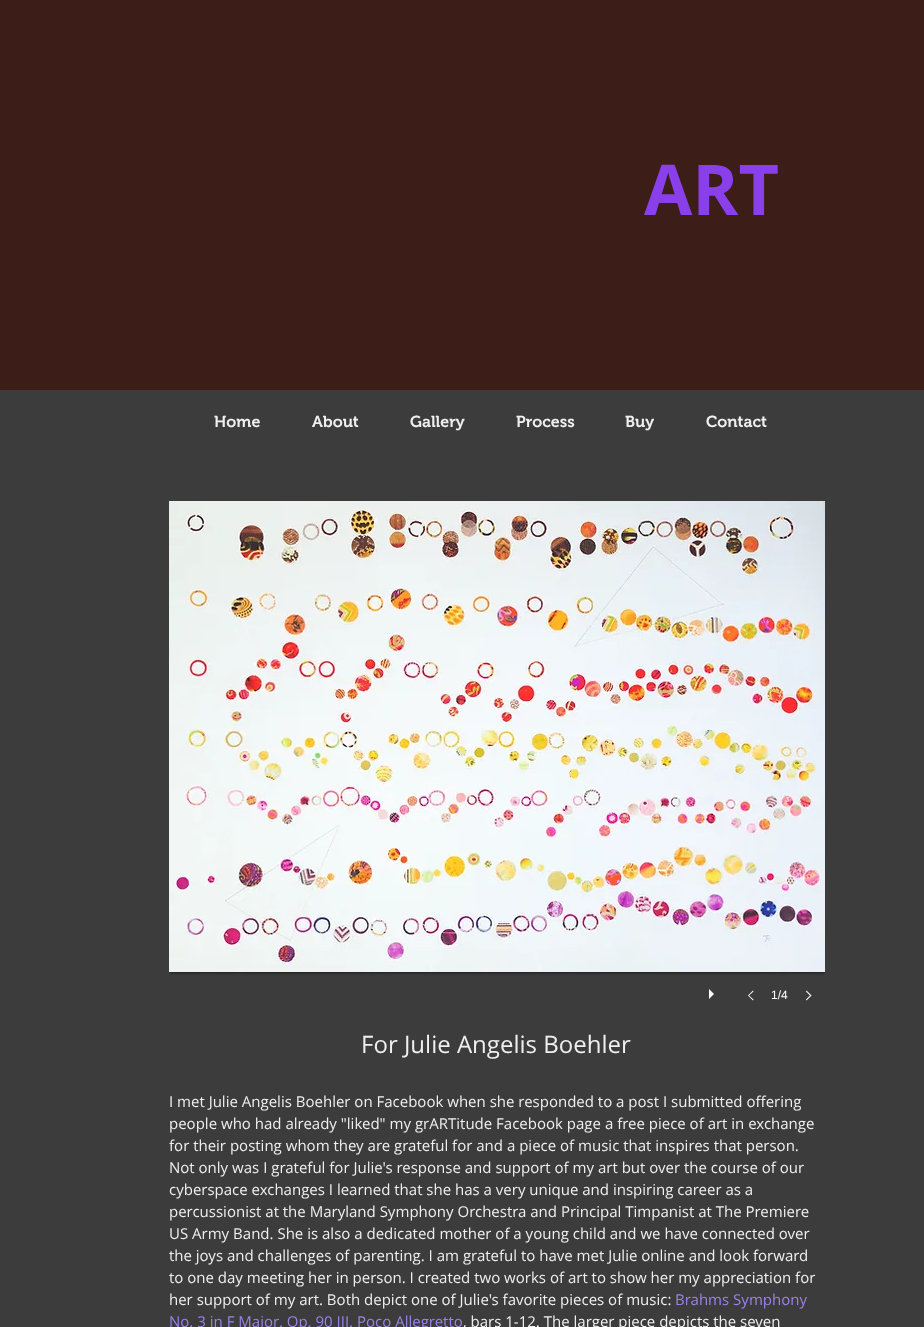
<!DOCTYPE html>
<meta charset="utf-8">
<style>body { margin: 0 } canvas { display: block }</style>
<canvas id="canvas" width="924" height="1327"></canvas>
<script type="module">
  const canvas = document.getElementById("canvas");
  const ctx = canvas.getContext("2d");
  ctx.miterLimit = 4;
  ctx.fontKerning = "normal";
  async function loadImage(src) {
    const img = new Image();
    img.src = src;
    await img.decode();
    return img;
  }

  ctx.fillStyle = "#3d3c3c";
  ctx.fillRect(0, 0, 924, 1327);
  ctx.fillStyle = "#3c1d17";
  ctx.fillRect(0, 0, 924, 390);
  ctx.font = "bold 70px Open Sans";
  ctx.fillStyle = "#8940ea";
  ctx.fillText("ART", 644, 215);
  ctx.font = "600 16px 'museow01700'";
  ctx.fillStyle = "#efefef";
  ctx.fillText("Home", 214, 427);
  ctx.fillText("About", 312, 427);
  ctx.fillText("Gallery", 410, 427);
  ctx.fillText("Process", 516, 427);
  ctx.fillText("Buy", 625, 427);
  ctx.fillText("Contact", 706, 427);
  ctx.save();
  ctx.beginPath();
  ctx.rect(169, 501, 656, 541);
  ctx.clip();
  ctx.fillStyle = "rgba(0, 0, 0, 0.5)";
  ctx.filter = "blur(1.5px)";
  ctx.beginPath();
  ctx.rect(169, 502, 656, 471);
  ctx.fill();
  ctx.filter = "none";
  ctx.restore();
  ctx.drawImage(await loadImage("img1.png"), 169, 501, 656, 471);
  ctx.fillStyle = "#ffffff";
  ctx.beginPath();
  ctx.moveTo(709, 999);
  ctx.lineTo(709, 989);
  ctx.lineTo(714, 994);
  ctx.closePath();
  ctx.fill();
  ctx.beginPath();
  ctx.moveTo(748, 995.5);
  ctx.lineTo(753, 990.5);
  ctx.lineTo(753.5, 991.5);
  ctx.lineTo(748.5, 996);
  ctx.closePath();
  ctx.fill();
  ctx.beginPath();
  ctx.moveTo(748, 995.5);
  ctx.lineTo(748.5, 995);
  ctx.lineTo(753.5, 999.5);
  ctx.lineTo(753, 1000.5);
  ctx.closePath();
  ctx.fill();
  ctx.font = "12px Liberation Sans";
  ctx.fillText("1/4", 771, 999);
  ctx.beginPath();
  ctx.moveTo(806, 991.5);
  ctx.lineTo(806.5, 990.5);
  ctx.lineTo(811.5, 995.5);
  ctx.lineTo(810.5, 996);
  ctx.closePath();
  ctx.fill();
  ctx.beginPath();
  ctx.moveTo(806, 999.5);
  ctx.lineTo(810.5, 995);
  ctx.lineTo(811.5, 995.5);
  ctx.lineTo(806.5, 1000.5);
  ctx.closePath();
  ctx.fill();
  ctx.font = "24px Open Sans";
  ctx.fillStyle = "#efefef";
  ctx.fillText("For Julie Angelis Boehler", 361, 1053);
  ctx.font = "15px Open Sans";
  ctx.fillText("I met Julie Angelis Boehler on Facebook when she responded to a post I submitted offering", 169, 1107);
  ctx.fillText("people who had already \"liked\" my grARTitude Facebook page a free piece of art in exchange", 169, 1129);
  ctx.fillText("for their posting whom they are grateful for and a piece of music that inspires that person.", 169, 1151);
  ctx.fillText("Not only was I grateful for Julie's response and support of my art but over the course of our", 169, 1173);
  ctx.fillText("cyberspace exchanges I learned that she has a very unique and inspiring career as a", 169, 1195);
  ctx.fillText("percussionist at the Maryland Symphony Orchestra and Principal Timpanist at The Premiere", 169, 1217);
  ctx.fillText("US Army Band. She is also a dedicated mother of a young child and we have connected over", 169, 1239);
  ctx.fillText("the joys and challenges of parenting. I am grateful to have met Julie online and look forward", 169, 1261);
  ctx.fillText("to one day meeting her in person. I created two works of art to show her my appreciation for", 169, 1283);
  ctx.fillText("her support of my art. Both depict one of Julie's favorite pieces of music:", 169, 1305);
  ctx.fillStyle = "#9b83e6";
  ctx.fillText("Brahms Symphony", 675, 1305);
  ctx.fillText("No. 3 in F Major, Op. 90 III. Poco Allegretto", 169, 1327);
  ctx.fillStyle = "#efefef";
  ctx.fillText(", bars 1-12. The larger piece depicts the seven", 463, 1327);
</script>
